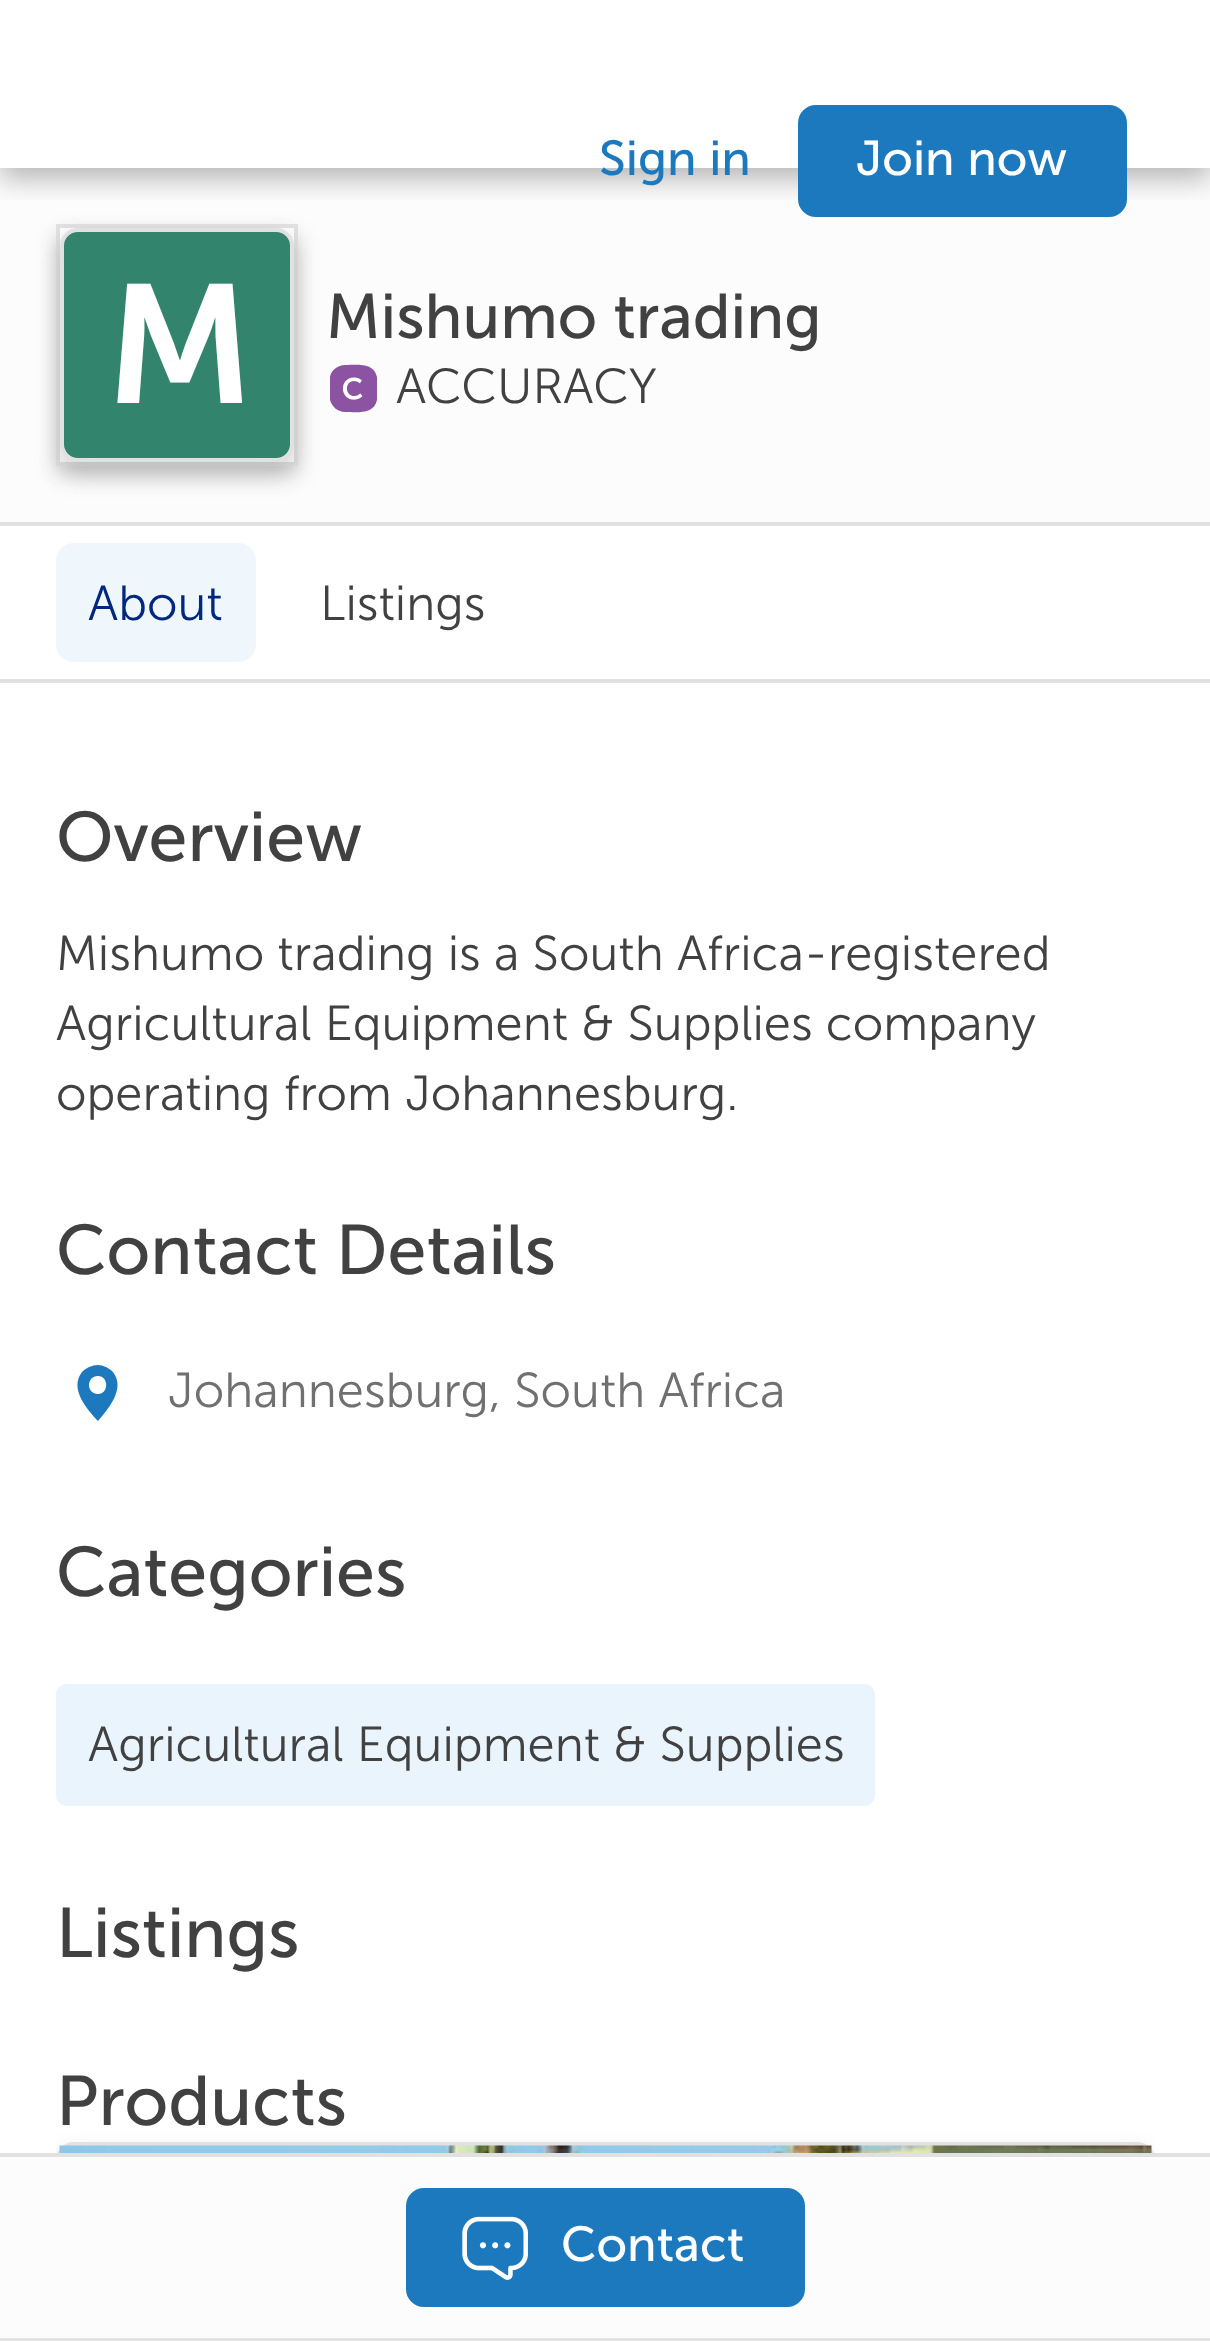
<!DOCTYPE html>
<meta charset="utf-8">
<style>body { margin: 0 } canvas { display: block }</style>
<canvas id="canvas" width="1210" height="2341"></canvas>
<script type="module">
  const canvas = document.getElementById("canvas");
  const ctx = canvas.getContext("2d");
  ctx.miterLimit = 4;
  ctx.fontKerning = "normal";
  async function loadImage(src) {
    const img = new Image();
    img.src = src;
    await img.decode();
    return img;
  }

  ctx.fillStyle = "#ffffff";
  ctx.fillRect(0, 0, 1210, 2341);
  ctx.fillStyle = "#fcfcfc";
  ctx.fillRect(0, 168, 1210, 354);
  ctx.save();
  ctx.beginPath();
  ctx.rect(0, 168, 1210, 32);
  ctx.clip();
  ctx.fillStyle = "rgba(0, 0, 0, 0.28)";
  ctx.filter = "blur(14px)";
  ctx.beginPath();
  ctx.rect(0, 11, 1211, 168);
  ctx.fill();
  ctx.filter = "none";
  ctx.restore();
  ctx.font = "49px Museo Sans";
  ctx.fillStyle = "#1d79be";
  ctx.fillText("Sign in", 599, 175);
  ctx.beginPath();
  ctx.roundRect(800, 107, 325, 108, 16);
  ctx.fill();
  ctx.strokeStyle = "#1d79be";
  ctx.lineWidth = 4;
  ctx.stroke();
  ctx.fillStyle = "#ffffff";
  ctx.fillText("Join now", 856, 175);
  ctx.save();
  ctx.beginPath();
  ctx.moveTo(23, 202);
  ctx.lineTo(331, 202);
  ctx.lineTo(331, 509);
  ctx.lineTo(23, 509);
  ctx.closePath();
  ctx.moveTo(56, 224);
  ctx.lineTo(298, 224);
  ctx.lineTo(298, 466);
  ctx.lineTo(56, 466);
  ctx.closePath();
  ctx.clip("evenodd");
  ctx.fillStyle = "rgba(0, 0, 0, 0.16)";
  ctx.filter = "blur(10.5px)";
  ctx.beginPath();
  ctx.rect(56, 235, 242, 241);
  ctx.fill();
  ctx.filter = "none";
  ctx.restore();
  ctx.strokeStyle = "#e1e1e1";
  ctx.strokeRect(58, 226, 238, 238);
  ctx.fillStyle = "rgba(0, 0, 0, 0.16)";
  ctx.filter = "blur(10.5px)";
  ctx.beginPath();
  ctx.roundRect(60, 238, 234, 235, 18);
  ctx.fill();
  ctx.filter = "none";
  ctx.fillStyle = "#32846c";
  ctx.beginPath();
  ctx.roundRect(62, 230, 230, 230, 16);
  ctx.fill();
  ctx.stroke();
  ctx.font = "600 168px Museo Sans";
  ctx.fillStyle = "#ffffff";
  ctx.fillText("M", 106, 403);
  ctx.font = "63px Museo Sans";
  ctx.fillStyle = "#414141";
  ctx.fillText("Mishumo trading", 326, 338);
  ctx.fillStyle = "#8b53a2";
  ctx.beginPath();
  ctx.moveTo(345, 365);
  ctx.bezierCurveTo(356, 365, 374, 362, 377, 377);
  ctx.lineTo(377, 400);
  ctx.bezierCurveTo(374, 415, 356, 412, 345, 412);
  ctx.bezierCurveTo(338, 412, 332, 407, 330, 400);
  ctx.lineTo(330, 377);
  ctx.bezierCurveTo(331, 370, 338, 365, 345, 365);
  ctx.closePath();
  ctx.fill();
  ctx.drawImage(await loadImage("img1.png"), 342, 377, 21, 23);
  ctx.font = "300 49px Museo Sans";
  ctx.fillStyle = "#414141";
  ctx.fillText("ACCURACY", 396, 403);
  ctx.fillStyle = "#e1e1e1";
  ctx.fillRect(0, 522, 1210, 4);
  ctx.fillRect(0, 679, 1210, 4);
  ctx.fillStyle = "#f0f7fc";
  ctx.beginPath();
  ctx.roundRect(56, 543, 200, 119, 18);
  ctx.fill();
  ctx.fillStyle = "#00297e";
  ctx.fillText("About", 88, 620);
  ctx.fillStyle = "#414141";
  ctx.fillText("Listings", 320, 620);
  ctx.save();
  ctx.beginPath();
  ctx.rect(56, 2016, 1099, 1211);
  ctx.clip();
  ctx.fillStyle = "rgba(0, 0, 0, 0.16)";
  ctx.filter = "blur(10.5px)";
  ctx.beginPath();
  ctx.roundRect(56, 2153, 1099, 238, 18);
  ctx.fill();
  ctx.filter = "none";
  ctx.restore();
  ctx.beginPath();
  ctx.roundRect(58, 2144, 1095, 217, 16);
  ctx.stroke();
  ctx.fillStyle = "#fcfcfc";
  ctx.fillRect(0, 2157, 1210, 181);
  ctx.fillStyle = "#e1e1e1";
  ctx.fillRect(0, 2153, 1210, 4);
  ctx.fillRect(0, 2338, 1210, 3);
  ctx.fillStyle = "#1d79be";
  ctx.beginPath();
  ctx.roundRect(408, 2190, 395, 115, 16);
  ctx.fill();
  ctx.strokeStyle = "#1d79be";
  ctx.stroke();
  ctx.drawImage(await loadImage("img2.png"), 462, 2216, 66, 64);
  ctx.font = "49px Museo Sans";
  ctx.fillStyle = "#ffffff";
  ctx.fillText("Contact", 561, 2261);
  ctx.font = "70px Museo Sans";
  ctx.fillStyle = "#414141";
  ctx.fillText("Overview", 56, 861);
  ctx.font = "300 49px Museo Sans";
  ctx.fillText("Mishumo trading is a South Africa-registered", 56, 970);
  ctx.fillText("Agricultural Equipment & Supplies company", 56, 1040);
  ctx.fillText("operating from Johannesburg.", 56, 1110);
  ctx.font = "70px Museo Sans";
  ctx.fillText("Contact Details", 56, 1274);
  ctx.fillStyle = "#1d79be";
  ctx.beginPath();
  ctx.moveTo(98, 1394);
  ctx.bezierCurveTo(86, 1394, 86, 1376, 98, 1376);
  ctx.bezierCurveTo(109, 1376, 109, 1394, 98, 1394);
  ctx.closePath();
  ctx.moveTo(98, 1365);
  ctx.bezierCurveTo(92, 1365, 86, 1368, 82, 1372);
  ctx.bezierCurveTo(69, 1389, 87, 1409, 98, 1421);
  ctx.bezierCurveTo(108, 1409, 126, 1389, 113, 1372);
  ctx.bezierCurveTo(109, 1368, 103, 1365, 98, 1365);
  ctx.closePath();
  ctx.fill();
  ctx.font = "300 49px Museo Sans";
  ctx.fillStyle = "#707070";
  ctx.fillText("Johannesburg, South Africa", 168, 1407);
  ctx.font = "70px Museo Sans";
  ctx.fillStyle = "#414141";
  ctx.fillText("Categories", 56, 1596);
  ctx.fillStyle = "#e9f4fc";
  ctx.beginPath();
  ctx.roundRect(58, 1686, 815, 118, 9);
  ctx.fill();
  ctx.strokeStyle = "#e9f4fc";
  ctx.stroke();
  ctx.font = "300 49px Museo Sans";
  ctx.fillStyle = "#414141";
  ctx.fillText("Agricultural Equipment & Supplies", 88, 1761);
  ctx.font = "70px Museo Sans";
  ctx.fillText("Listings", 56, 1957);
  ctx.fillText("Products", 56, 2125);
  ctx.drawImage(await loadImage("img3.png"), 59, 2145, 1093, 8);
</script>
